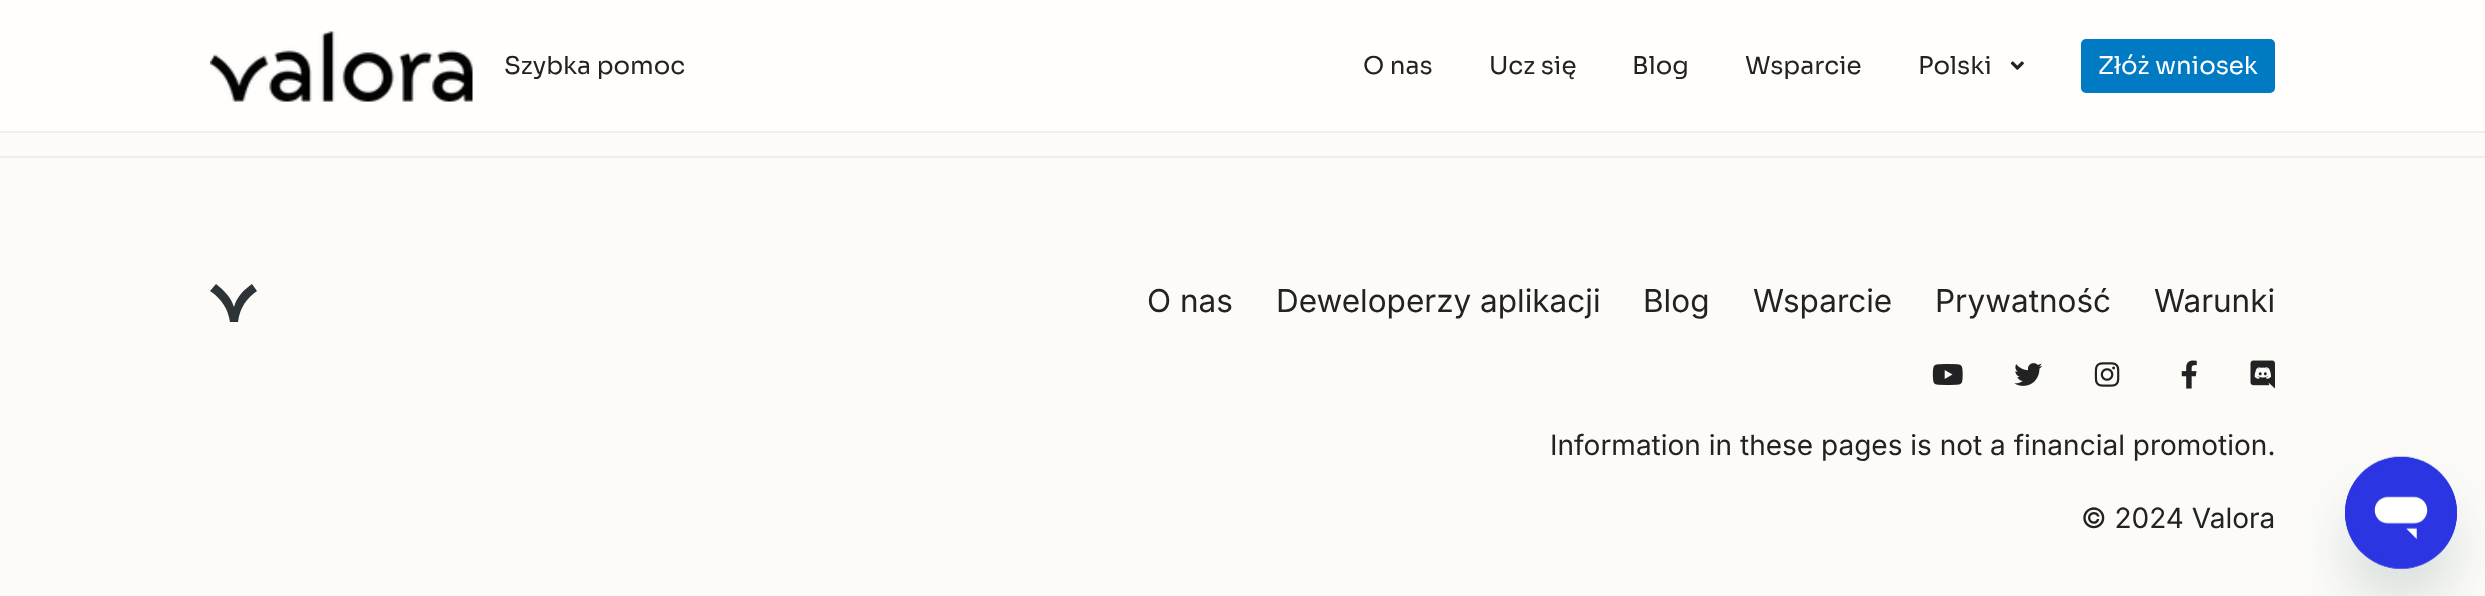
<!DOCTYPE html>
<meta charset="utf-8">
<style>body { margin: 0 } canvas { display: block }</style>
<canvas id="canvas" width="2485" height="596"></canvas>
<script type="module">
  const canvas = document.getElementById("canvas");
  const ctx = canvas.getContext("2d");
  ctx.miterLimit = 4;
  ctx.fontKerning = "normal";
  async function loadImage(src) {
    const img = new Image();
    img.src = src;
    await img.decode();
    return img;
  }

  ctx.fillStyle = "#fcfbf8";
  ctx.fillRect(0, 0, 2485, 596);
  ctx.fillStyle = "#fffefc";
  ctx.fillRect(0, 0, 2485, 131);
  ctx.fillStyle = "#eeeeee";
  ctx.fillRect(0, 131, 2485, 2);
  ctx.drawImage(await loadImage("img1.png"), 210, 31, 263, 71);
  ctx.font = "24.5px Sora";
  ctx.fillStyle = "#222222";
  ctx.fillText("Szybka pomoc", 504, 74);
  ctx.fillText("O nas", 1363, 74);
  ctx.fillText("Ucz się", 1489, 74);
  ctx.fillText("Blog", 1632, 74);
  ctx.fillText("Wsparcie", 1745, 74);
  ctx.fillText("Polski", 1918, 74);
  ctx.drawImage(await loadImage("img2.png"), 2010, 61, 14, 9);
  ctx.fillStyle = "#007ac2";
  ctx.beginPath();
  ctx.roundRect(2081, 39, 194, 54, 5);
  ctx.fill();
  ctx.fillStyle = "#ffffff";
  ctx.fillText("Złóż wniosek", 2098, 74);
  ctx.fillStyle = "#eeeeee";
  ctx.fillRect(0, 156, 2485, 2);
  ctx.fillStyle = "#2e3338";
  ctx.beginPath();
  ctx.moveTo(238, 322);
  ctx.bezierCurveTo(240, 307, 247, 298, 257, 291);
  ctx.lineTo(252, 284);
  ctx.bezierCurveTo(245, 289, 237, 296, 234, 307);
  ctx.bezierCurveTo(231, 298, 225, 291, 216, 284);
  ctx.lineTo(210, 291);
  ctx.bezierCurveTo(222, 299, 228, 309, 230, 322);
  ctx.closePath();
  ctx.fill();
  ctx.font = "31.5px Inter";
  ctx.fillStyle = "#222222";
  ctx.fillText("O nas", 1147, 312);
  ctx.fillText("Deweloperzy aplikacji", 1276, 312);
  ctx.fillText("Blog", 1643, 312);
  ctx.fillText("Wsparcie", 1753, 312);
  ctx.fillText("Prywatność", 1935, 312);
  ctx.fillText("Warunki", 2154, 312);
  ctx.drawImage(await loadImage("img3.png"), 1932, 364, 31, 21);
  ctx.drawImage(await loadImage("img4.png"), 2014, 363, 29, 23);
  ctx.drawImage(await loadImage("img5.png"), 2094, 362, 26, 25);
  ctx.drawImage(await loadImage("img6.png"), 2181, 360, 16, 29);
  ctx.drawImage(await loadImage("img7.png"), 2250, 360, 25, 29);
  ctx.font = "28px Inter";
  ctx.fillText("Information in these pages is not a financial promotion.", 1550, 455);
  ctx.fillText("© 2024 Valora", 2081, 528);
  ctx.fillStyle = "rgba(23, 73, 77, 0.15)";
  ctx.filter = "blur(26px)";
  ctx.beginPath();
  ctx.roundRect(2345, 492, 112, 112, 56);
  ctx.fill();
  ctx.filter = "none";
  ctx.drawImage(await loadImage("img8.png"), 2345, 456, 112, 113);
</script>
